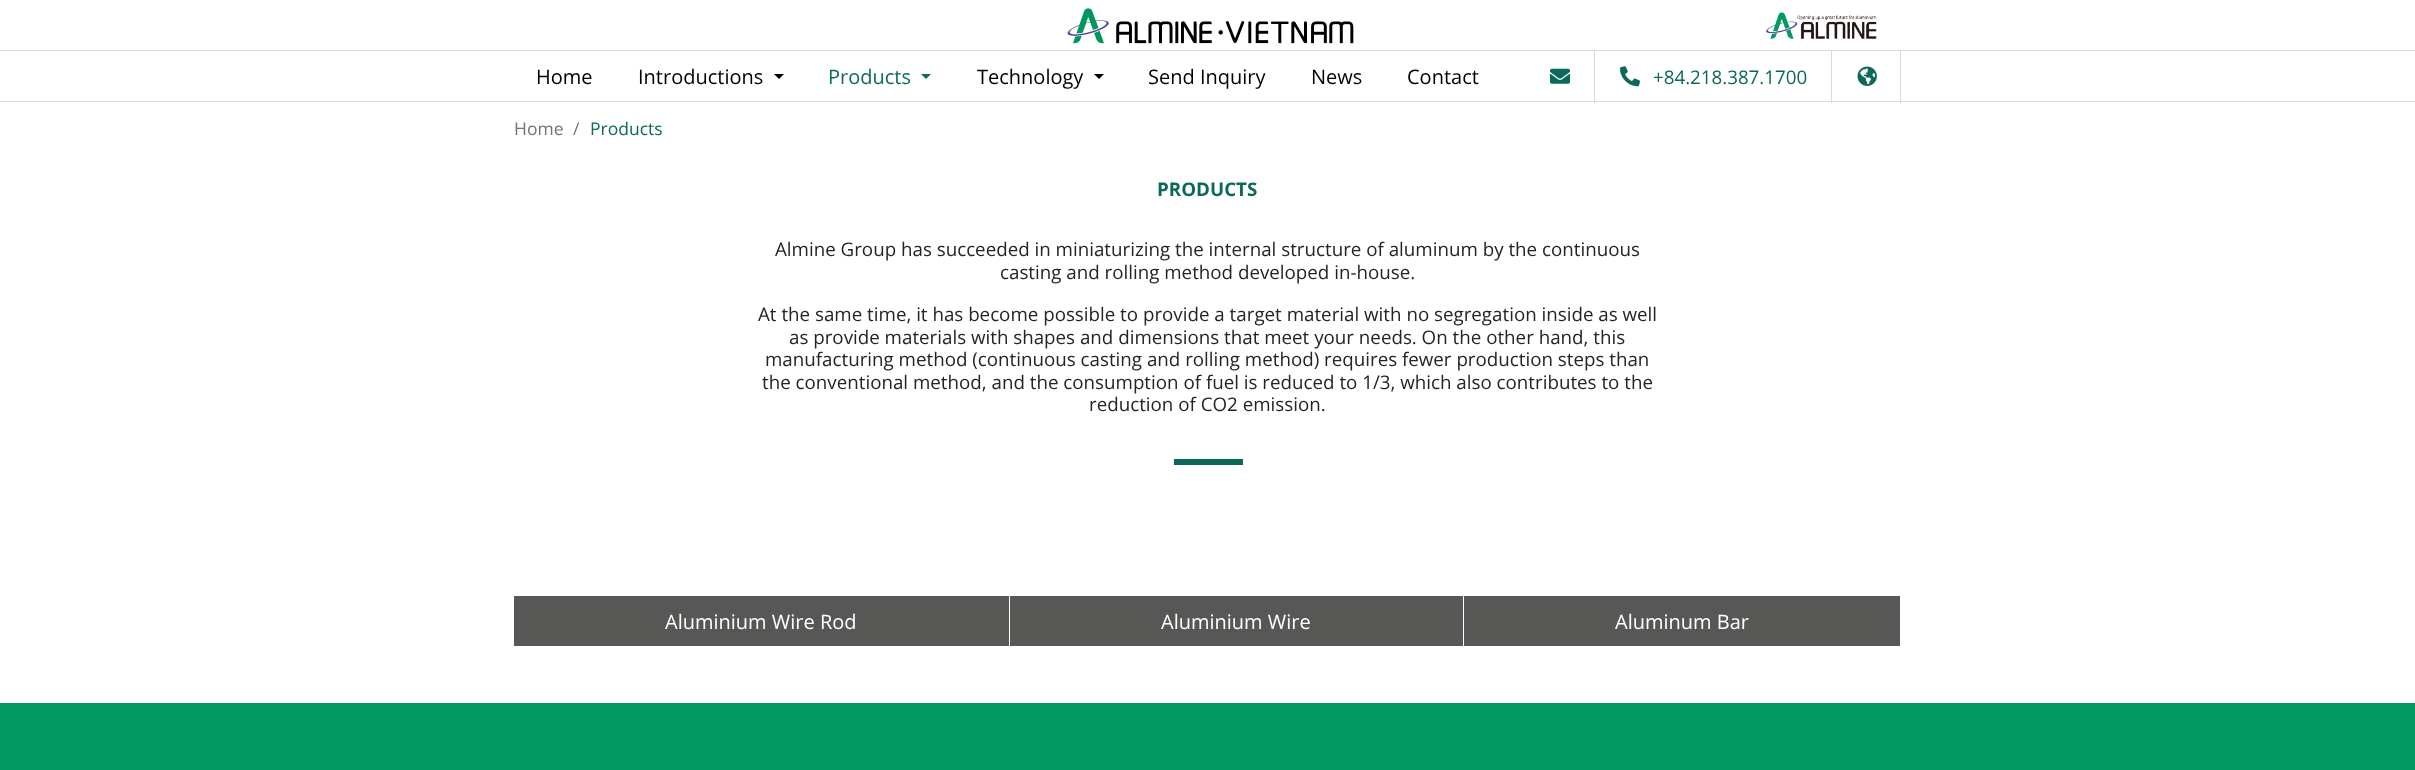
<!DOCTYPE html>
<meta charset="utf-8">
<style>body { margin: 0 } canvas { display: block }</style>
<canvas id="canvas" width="2415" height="770"></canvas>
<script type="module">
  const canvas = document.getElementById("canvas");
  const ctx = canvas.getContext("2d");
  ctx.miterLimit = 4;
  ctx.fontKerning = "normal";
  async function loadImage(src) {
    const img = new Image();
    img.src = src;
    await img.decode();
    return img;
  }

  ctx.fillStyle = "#ffffff";
  ctx.fillRect(0, 0, 2415, 770);
  ctx.drawImage(await loadImage("img1.png"), 1067, 8, 287, 36);
  ctx.fillStyle = "#d9d9d9";
  ctx.fillRect(0, 50, 2415, 1);
  ctx.fillRect(0, 101, 2415, 1);
  ctx.font = "20px Open Sans";
  ctx.fillStyle = "#000000";
  ctx.fillText("Home", 536, 84);
  ctx.fillText("Introductions", 638, 84);
  ctx.beginPath();
  ctx.moveTo(774, 74);
  ctx.lineTo(784, 74);
  ctx.lineTo(779, 79);
  ctx.closePath();
  ctx.fill();
  ctx.fillStyle = "#0c695a";
  ctx.fillText("Products", 828, 84);
  ctx.beginPath();
  ctx.moveTo(921, 74);
  ctx.lineTo(931, 74);
  ctx.lineTo(926, 79);
  ctx.closePath();
  ctx.fill();
  ctx.fillStyle = "#000000";
  ctx.fillText("Technology", 977, 84);
  ctx.beginPath();
  ctx.moveTo(1094, 74);
  ctx.lineTo(1104, 74);
  ctx.lineTo(1099, 79);
  ctx.closePath();
  ctx.fill();
  ctx.fillText("Send Inquiry", 1148, 84);
  ctx.fillText("News", 1311, 84);
  ctx.fillText("Contact", 1407, 84);
  ctx.drawImage(await loadImage("img2.png"), 1766, 12, 111, 27);
  ctx.drawImage(await loadImage("img3.png"), 1550, 68, 20, 16);
  ctx.fillStyle = "#d9d9d9";
  ctx.fillRect(1594, 50, 1, 53);
  ctx.drawImage(await loadImage("img4.png"), 1620, 66, 20, 21);
  ctx.font = "18.75px Open Sans";
  ctx.fillStyle = "#0c695a";
  ctx.fillText("+84.218.387.1700", 1653, 84);
  ctx.fillStyle = "#d9d9d9";
  ctx.fillRect(1831, 50, 1, 53);
  ctx.drawImage(await loadImage("img5.png"), 1857, 66, 20, 20);
  ctx.fillRect(1900, 50, 1, 53);
  ctx.font = "17.5px Open Sans";
  ctx.fillStyle = "#737373";
  ctx.fillText("Home", 514, 135);
  ctx.fillStyle = "#6c757d";
  ctx.fillText("/", 573, 135);
  ctx.fillStyle = "#0c695a";
  ctx.fillText("Products", 590, 135);
  ctx.font = "bold 18.75px Open Sans";
  ctx.fillText("PRODUCTS", 1157, 196);
  ctx.font = "18.75px Open Sans";
  ctx.fillStyle = "#212529";
  ctx.fillText("Almine Group has succeeded in miniaturizing the internal structure of aluminum by the continuous", 775, 256);
  ctx.fillText("casting and rolling method developed in-house.", 1000, 279);
  ctx.fillText("At the same time, it has become possible to provide a target material with no segregation inside as well", 758, 321);
  ctx.fillText("as provide materials with shapes and dimensions that meet your needs. On the other hand, this", 789, 344);
  ctx.fillText("manufacturing method (continuous casting and rolling method) requires fewer production steps than", 765, 366);
  ctx.fillText("the conventional method, and the consumption of fuel is reduced to 1/3, which also contributes to the", 762, 389);
  ctx.fillText("reduction of CO2 emission.", 1089, 411);
  ctx.fillStyle = "#0c695a";
  ctx.fillRect(1174, 459, 69, 6);
  ctx.fillStyle = "#575756";
  ctx.fillRect(514, 596, 495, 50);
  ctx.font = "20px Open Sans";
  ctx.fillStyle = "#ffffff";
  ctx.fillText("Aluminium Wire Rod", 665, 629);
  ctx.fillStyle = "#575756";
  ctx.fillRect(1010, 596, 453, 50);
  ctx.fillStyle = "#ffffff";
  ctx.fillText("Aluminium Wire", 1161, 629);
  ctx.fillStyle = "#575756";
  ctx.fillRect(1464, 596, 436, 50);
  ctx.fillStyle = "#ffffff";
  ctx.fillText("Aluminum Bar", 1615, 629);
  ctx.fillStyle = "#009a62";
  ctx.fillRect(0, 703, 2415, 67);
</script>
